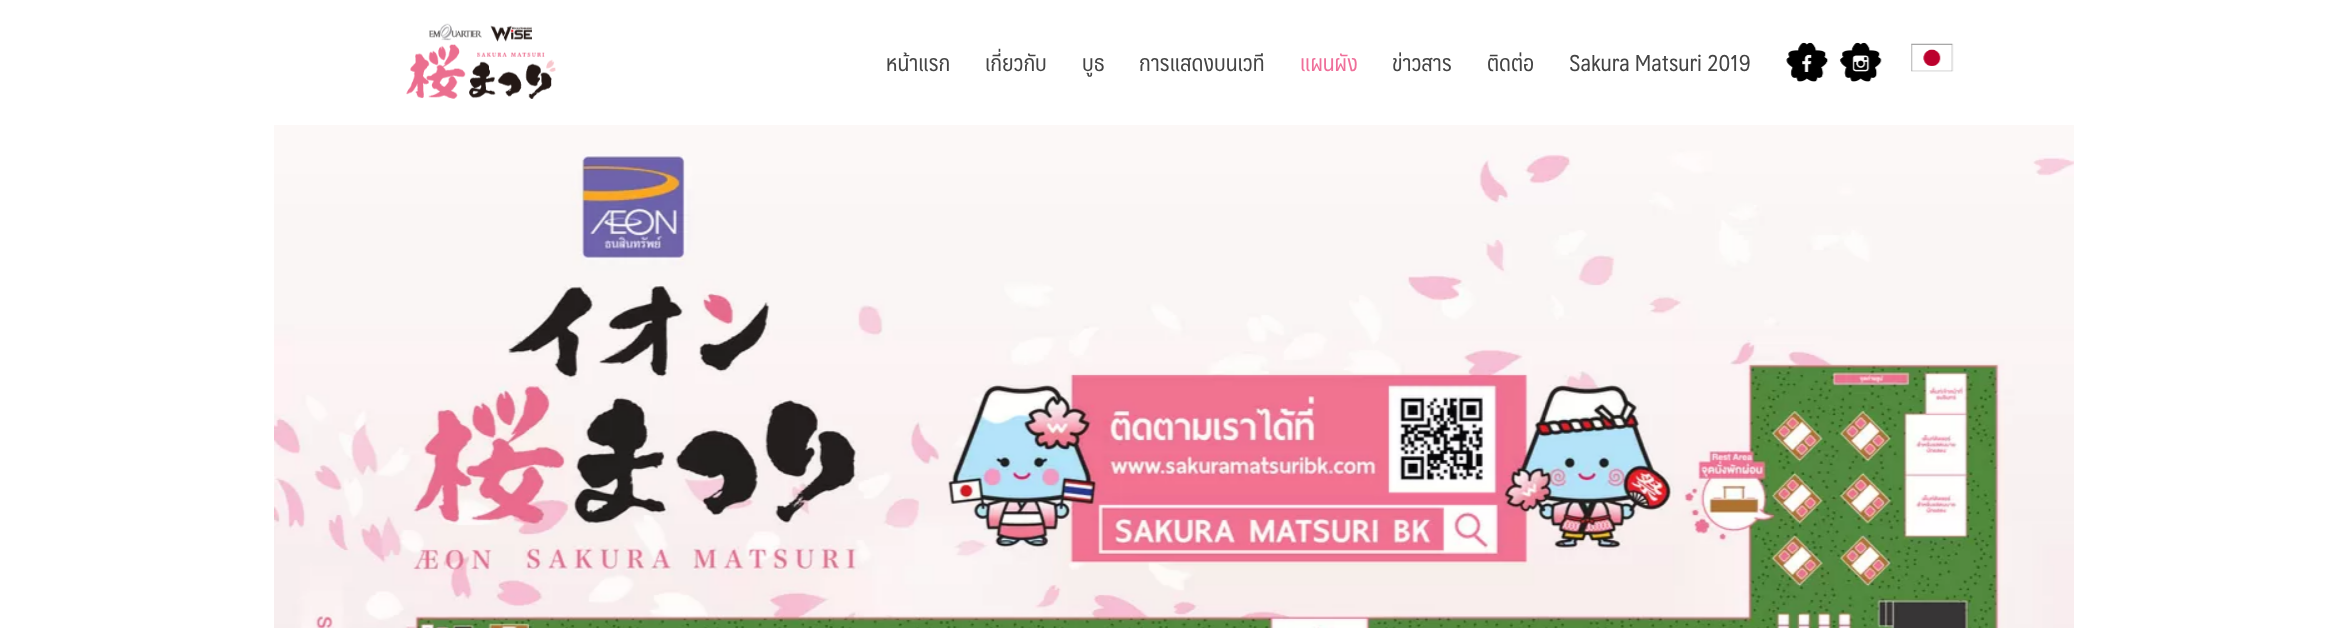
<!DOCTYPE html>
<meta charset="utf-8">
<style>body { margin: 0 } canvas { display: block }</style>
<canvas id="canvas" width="2347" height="628"></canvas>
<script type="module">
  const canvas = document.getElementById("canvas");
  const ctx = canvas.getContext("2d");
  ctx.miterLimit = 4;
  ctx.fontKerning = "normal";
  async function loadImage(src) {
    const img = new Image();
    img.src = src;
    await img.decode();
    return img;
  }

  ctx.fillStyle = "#ffffff";
  ctx.fillRect(0, 0, 2347, 628);
  ctx.drawImage(await loadImage("img1.png"), 406, 23, 150, 76);
  ctx.font = "22.5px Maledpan";
  ctx.fillStyle = "#444444";
  ctx.fillText("หน้าแรก", 886, 71);
  ctx.fillText("เกี่ยวกับ", 985, 71);
  ctx.fillText("บูธ", 1082, 71);
  ctx.fillText("การแสดงบนเวที", 1139, 71);
  ctx.fillStyle = "#ef6f9a";
  ctx.fillText("แผนผัง", 1300, 71);
  ctx.fillStyle = "#444444";
  ctx.fillText("ข่าวสาร", 1392, 71);
  ctx.fillText("ติดต่อ", 1487, 71);
  ctx.fillText("Sakura Matsuri 2019", 1569, 71);
  ctx.drawImage(await loadImage("img2.png"), 1786, 42, 43, 40);
  ctx.drawImage(await loadImage("img3.png"), 1839, 42, 43, 40);
  ctx.drawImage(await loadImage("img4.png"), 1911, 43, 43, 29);
  ctx.drawImage(await loadImage("img5.png"), 274, 125, 1800, 503);
</script>
